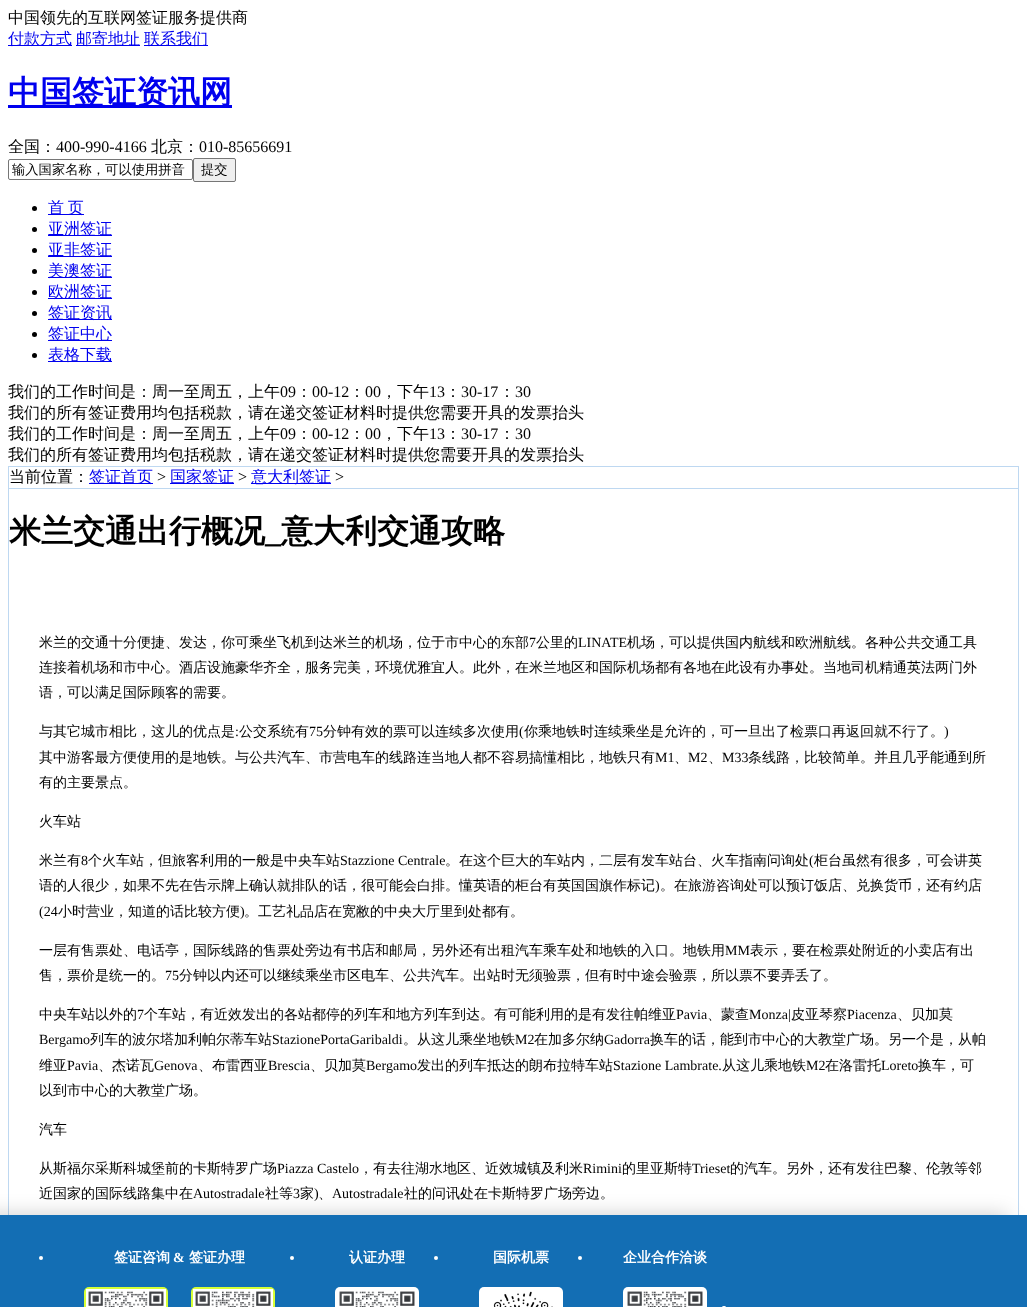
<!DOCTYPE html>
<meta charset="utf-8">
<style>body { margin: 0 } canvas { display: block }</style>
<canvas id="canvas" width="1027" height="1307"></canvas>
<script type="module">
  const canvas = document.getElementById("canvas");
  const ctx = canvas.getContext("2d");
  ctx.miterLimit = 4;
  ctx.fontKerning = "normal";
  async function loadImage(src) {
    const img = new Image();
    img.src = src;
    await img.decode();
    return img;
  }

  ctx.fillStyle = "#ffffff";
  ctx.fillRect(0, 0, 1027, 1307);
  ctx.font = "500 16px WenQuanYi Zen Hei";
  ctx.fillStyle = "#000000";
  ctx.fillText("中国领先的互联网签证服务提供商", 8, 23);
  ctx.fillStyle = "#0000ee";
  ctx.fillRect(8, 45, 64, 1);
  ctx.fillText("付款方式", 8, 44);
  ctx.fillRect(76, 45, 64, 1);
  ctx.fillText("邮寄地址", 76, 44);
  ctx.fillRect(144, 45, 64, 1);
  ctx.fillText("联系我们", 144, 44);
  ctx.fillRect(8, 105, 224, 3);
  ctx.font = "bold 32px WenQuanYi Zen Hei";
  ctx.fillText("中国签证资讯网", 8, 103);
  ctx.font = "500 16px WenQuanYi Zen Hei";
  ctx.fillStyle = "#000000";
  ctx.fillText("全国：", 8, 152);
  ctx.font = "16px Liberation Serif";
  ctx.fillText("400-990-4166", 56, 152);
  ctx.font = "500 16px WenQuanYi Zen Hei";
  ctx.fillText("北京：", 151, 152);
  ctx.font = "16px Liberation Serif";
  ctx.fillText("010-85656691", 199, 152);
  ctx.beginPath();
  ctx.roundRect(8.5, 159.5, 184, 20, 1.5);
  ctx.strokeStyle = "#767676";
  ctx.stroke();
  ctx.font = "500 13.3px WenQuanYi Zen Hei";
  ctx.fillText("输入国家名称，可以使用拼音", 12, 174);
  ctx.fillStyle = "#efefef";
  ctx.beginPath();
  ctx.roundRect(193.5, 158.5, 42, 23, 1.5);
  ctx.fill();
  ctx.stroke();
  ctx.fillStyle = "#000000";
  ctx.fillText("提交", 201, 174);
  ctx.beginPath();
  ctx.arc(34.5, 208.5, 2.5, 0, Math.PI * 2);
  ctx.fill();
  ctx.fillStyle = "#0000ee";
  ctx.fillRect(48, 214, 36, 1);
  ctx.wordSpacing = "-1px";
  ctx.font = "500 16px WenQuanYi Zen Hei";
  ctx.fillText("首 页", 48, 213);
  ctx.fillStyle = "#000000";
  ctx.beginPath();
  ctx.arc(34.5, 229.5, 2.5, 0, Math.PI * 2);
  ctx.fill();
  ctx.fillStyle = "#0000ee";
  ctx.fillRect(48, 235, 64, 1);
  ctx.wordSpacing = "0px";
  ctx.fillText("亚洲签证", 48, 234);
  ctx.fillStyle = "#000000";
  ctx.beginPath();
  ctx.arc(34.5, 250.5, 2.5, 0, Math.PI * 2);
  ctx.fill();
  ctx.fillStyle = "#0000ee";
  ctx.fillRect(48, 256, 64, 1);
  ctx.fillText("亚非签证", 48, 255);
  ctx.fillStyle = "#000000";
  ctx.beginPath();
  ctx.arc(34.5, 271.5, 2.5, 0, Math.PI * 2);
  ctx.fill();
  ctx.fillStyle = "#0000ee";
  ctx.fillRect(48, 277, 64, 1);
  ctx.fillText("美澳签证", 48, 276);
  ctx.fillStyle = "#000000";
  ctx.beginPath();
  ctx.arc(34.5, 292.5, 2.5, 0, Math.PI * 2);
  ctx.fill();
  ctx.fillStyle = "#0000ee";
  ctx.fillRect(48, 298, 64, 1);
  ctx.fillText("欧洲签证", 48, 297);
  ctx.fillStyle = "#000000";
  ctx.beginPath();
  ctx.arc(34.5, 313.5, 2.5, 0, Math.PI * 2);
  ctx.fill();
  ctx.fillStyle = "#0000ee";
  ctx.fillRect(48, 319, 64, 1);
  ctx.fillText("签证资讯", 48, 318);
  ctx.fillStyle = "#000000";
  ctx.beginPath();
  ctx.arc(34.5, 334.5, 2.5, 0, Math.PI * 2);
  ctx.fill();
  ctx.fillStyle = "#0000ee";
  ctx.fillRect(48, 340, 64, 1);
  ctx.fillText("签证中心", 48, 339);
  ctx.fillStyle = "#000000";
  ctx.beginPath();
  ctx.arc(34.5, 355.5, 2.5, 0, Math.PI * 2);
  ctx.fill();
  ctx.fillStyle = "#0000ee";
  ctx.fillRect(48, 361, 64, 1);
  ctx.fillText("表格下载", 48, 360);
  ctx.fillStyle = "#000000";
  ctx.fillText("我们的工作时间是：周一至周五，上午", 8, 397);
  ctx.font = "16px Liberation Serif";
  ctx.fillText("09", 280, 397);
  ctx.font = "500 16px WenQuanYi Zen Hei";
  ctx.fillText("：", 296, 397);
  ctx.font = "16px Liberation Serif";
  ctx.fillText("00-12", 312, 397);
  ctx.font = "500 16px WenQuanYi Zen Hei";
  ctx.fillText("：", 349, 397);
  ctx.font = "16px Liberation Serif";
  ctx.fillText("00", 365, 397);
  ctx.font = "500 16px WenQuanYi Zen Hei";
  ctx.fillText("，下午", 381, 397);
  ctx.font = "16px Liberation Serif";
  ctx.fillText("13", 429, 397);
  ctx.font = "500 16px WenQuanYi Zen Hei";
  ctx.fillText("：", 445, 397);
  ctx.font = "16px Liberation Serif";
  ctx.fillText("30-17", 461, 397);
  ctx.font = "500 16px WenQuanYi Zen Hei";
  ctx.fillText("：", 499, 397);
  ctx.font = "16px Liberation Serif";
  ctx.fillText("30", 515, 397);
  ctx.font = "500 16px WenQuanYi Zen Hei";
  ctx.fillText("我们的所有签证费用均包括税款，请在递交签证材料时提供您需要开具的发票抬头", 8, 418);
  ctx.fillText("我们的工作时间是：周一至周五，上午", 8, 439);
  ctx.font = "16px Liberation Serif";
  ctx.fillText("09", 280, 439);
  ctx.font = "500 16px WenQuanYi Zen Hei";
  ctx.fillText("：", 296, 439);
  ctx.font = "16px Liberation Serif";
  ctx.fillText("00-12", 312, 439);
  ctx.font = "500 16px WenQuanYi Zen Hei";
  ctx.fillText("：", 349, 439);
  ctx.font = "16px Liberation Serif";
  ctx.fillText("00", 365, 439);
  ctx.font = "500 16px WenQuanYi Zen Hei";
  ctx.fillText("，下午", 381, 439);
  ctx.font = "16px Liberation Serif";
  ctx.fillText("13", 429, 439);
  ctx.font = "500 16px WenQuanYi Zen Hei";
  ctx.fillText("：", 445, 439);
  ctx.font = "16px Liberation Serif";
  ctx.fillText("30-17", 461, 439);
  ctx.font = "500 16px WenQuanYi Zen Hei";
  ctx.fillText("：", 499, 439);
  ctx.font = "16px Liberation Serif";
  ctx.fillText("30", 515, 439);
  ctx.font = "500 16px WenQuanYi Zen Hei";
  ctx.fillText("我们的所有签证费用均包括税款，请在递交签证材料时提供您需要开具的发票抬头", 8, 460);
  ctx.fillStyle = "#bed8f1";
  ctx.fillRect(8, 466, 1011, 749);
  ctx.fillStyle = "#ffffff";
  ctx.fillRect(9, 467, 1009, 21);
  ctx.fillStyle = "#000000";
  ctx.fillText("当前位置：", 9, 482);
  ctx.fillStyle = "#0000ee";
  ctx.fillRect(89, 483, 64, 1);
  ctx.fillText("签证首页", 89, 482);
  ctx.font = "16px Liberation Serif";
  ctx.fillStyle = "#000000";
  ctx.fillText(">", 157, 482);
  ctx.fillStyle = "#0000ee";
  ctx.fillRect(170, 483, 64, 1);
  ctx.font = "500 16px WenQuanYi Zen Hei";
  ctx.fillText("国家签证", 170, 482);
  ctx.font = "16px Liberation Serif";
  ctx.fillStyle = "#000000";
  ctx.fillText(">", 238, 482);
  ctx.fillStyle = "#0000ee";
  ctx.fillRect(251, 483, 80, 1);
  ctx.font = "500 16px WenQuanYi Zen Hei";
  ctx.fillText("意大利签证", 251, 482);
  ctx.font = "16px Liberation Serif";
  ctx.fillStyle = "#000000";
  ctx.fillText(">", 335, 482);
  ctx.fillStyle = "#ffffff";
  ctx.fillRect(9, 489, 1009, 726);
  ctx.font = "bold 32px WenQuanYi Zen Hei";
  ctx.fillStyle = "#000000";
  ctx.fillText("米兰交通出行概况", 9, 542);
  ctx.font = "bold 32px Liberation Serif";
  ctx.fillText("_", 265, 542);
  ctx.font = "bold 32px WenQuanYi Zen Hei";
  ctx.fillText("意大利交通攻略", 281, 542);
  ctx.font = "500 14px WenQuanYi Zen Hei";
  ctx.fillText("米兰的交通十分便捷、发达，你可乘坐飞机到达米兰的机场，位于市中心的东部", 39, 647);
  ctx.font = "14px Liberation Serif";
  ctx.fillText("7", 529, 647);
  ctx.font = "500 14px WenQuanYi Zen Hei";
  ctx.fillText("公里的", 536, 647);
  ctx.font = "14px Liberation Serif";
  ctx.fillText("LINATE", 578, 647);
  ctx.font = "500 14px WenQuanYi Zen Hei";
  ctx.fillText("机场，可以提供国内航线和欧洲航线。各种公共交通工具", 627, 647);
  ctx.fillText("连接着机场和市中心。酒店设施豪华齐全，服务完美，环境优雅宜人。此外，在米兰地区和国际机场都有各地在此设有办事处。当地司机精通英法两门外", 39, 672);
  ctx.fillText("语，可以满足国际顾客的需要。", 39, 697);
  ctx.fillText("与其它城市相比，这儿的优点是", 39, 736);
  ctx.font = "14px Liberation Serif";
  ctx.fillText(":", 235, 736);
  ctx.font = "500 14px WenQuanYi Zen Hei";
  ctx.fillText("公交系统有", 239, 736);
  ctx.font = "14px Liberation Serif";
  ctx.fillText("75", 309, 736);
  ctx.font = "500 14px WenQuanYi Zen Hei";
  ctx.fillText("分钟有效的票可以连续多次使用", 323, 736);
  ctx.font = "14px Liberation Serif";
  ctx.fillText("(", 519, 736);
  ctx.font = "500 14px WenQuanYi Zen Hei";
  ctx.fillText("你乘地铁时连续乘坐是允许的，可一旦出了检票口再返回就不行了。", 524, 736);
  ctx.font = "14px Liberation Serif";
  ctx.fillText(")", 944, 736);
  ctx.font = "500 14px WenQuanYi Zen Hei";
  ctx.fillText("其中游客最方便使用的是地铁。与公共汽车、市营电车的线路连当地人都不容易搞懂相比，地铁只有", 39, 762);
  ctx.font = "14px Liberation Serif";
  ctx.fillText("M1", 655, 762);
  ctx.font = "500 14px WenQuanYi Zen Hei";
  ctx.fillText("、", 674, 762);
  ctx.font = "14px Liberation Serif";
  ctx.fillText("M2", 688, 762);
  ctx.font = "500 14px WenQuanYi Zen Hei";
  ctx.fillText("、", 708, 762);
  ctx.font = "14px Liberation Serif";
  ctx.fillText("M33", 722, 762);
  ctx.font = "500 14px WenQuanYi Zen Hei";
  ctx.fillText("条线路，比较简单。并且几乎能通到所", 748, 762);
  ctx.fillText("有的主要景点。", 39, 787);
  ctx.fillText("火车站", 39, 826);
  ctx.fillText("米兰有", 39, 865);
  ctx.font = "14px Liberation Serif";
  ctx.fillText("8", 81, 865);
  ctx.font = "500 14px WenQuanYi Zen Hei";
  ctx.fillText("个火车站，但旅客利用的一般是中央车站", 88, 865);
  ctx.font = "14px Liberation Serif";
  ctx.fillText("Stazzione Centrale", 340, 865);
  ctx.font = "500 14px WenQuanYi Zen Hei";
  ctx.fillText("。在这个巨大的车站内，二层有发车站台、火车指南问询处", 445, 865);
  ctx.font = "14px Liberation Serif";
  ctx.fillText("(", 809, 865);
  ctx.font = "500 14px WenQuanYi Zen Hei";
  ctx.fillText("柜台虽然有很多，可会讲英", 814, 865);
  ctx.fillText("语的人很少，如果不先在告示牌上确认就排队的话，很可能会白排。懂英语的柜台有英国国旗作标记", 39, 890);
  ctx.font = "14px Liberation Serif";
  ctx.fillText(")", 655, 890);
  ctx.font = "500 14px WenQuanYi Zen Hei";
  ctx.fillText("。在旅游咨询处可以预订饭店、兑换货币，还有约店", 660, 890);
  ctx.font = "14px Liberation Serif";
  ctx.fillText("(24", 39, 916);
  ctx.font = "500 14px WenQuanYi Zen Hei";
  ctx.fillText("小时营业，知道的话比较方便", 58, 916);
  ctx.font = "14px Liberation Serif";
  ctx.fillText(")", 240, 916);
  ctx.font = "500 14px WenQuanYi Zen Hei";
  ctx.fillText("。工艺礼品店在宽敝的中央大厅里到处都有。", 244, 916);
  ctx.fillText("一层有售票处、电话亭，国际线路的售票处旁边有书店和邮局，另外还有出租汽车乘车处和地铁的入口。地铁用", 39, 955);
  ctx.font = "14px Liberation Serif";
  ctx.fillText("MM", 725, 955);
  ctx.font = "500 14px WenQuanYi Zen Hei";
  ctx.fillText("表示，要在检票处附近的小卖店有出", 750, 955);
  ctx.fillText("售，票价是统一的。", 39, 980);
  ctx.font = "14px Liberation Serif";
  ctx.fillText("75", 165, 980);
  ctx.font = "500 14px WenQuanYi Zen Hei";
  ctx.fillText("分钟以内还可以继续乘坐市区电车、公共汽车。出站时无须验票，但有时中途会验票，所以票不要弄丢了。", 179, 980);
  ctx.fillText("中央车站以外的", 39, 1019);
  ctx.font = "14px Liberation Serif";
  ctx.fillText("7", 137, 1019);
  ctx.font = "500 14px WenQuanYi Zen Hei";
  ctx.fillText("个车站，有近效发出的各站都停的列车和地方列车到达。有可能利用的是有发往帕维亚", 144, 1019);
  ctx.font = "14px Liberation Serif";
  ctx.fillText("Pavia", 676, 1019);
  ctx.font = "500 14px WenQuanYi Zen Hei";
  ctx.fillText("、蒙查", 707, 1019);
  ctx.font = "14px Liberation Serif";
  ctx.fillText("Monza|", 749, 1019);
  ctx.font = "500 14px WenQuanYi Zen Hei";
  ctx.fillText("皮亚琴察", 791, 1019);
  ctx.font = "14px Liberation Serif";
  ctx.fillText("Piacenza", 847, 1019);
  ctx.font = "500 14px WenQuanYi Zen Hei";
  ctx.fillText("、贝加莫", 897, 1019);
  ctx.font = "14px Liberation Serif";
  ctx.fillText("Bergamo", 39, 1044);
  ctx.font = "500 14px WenQuanYi Zen Hei";
  ctx.fillText("列车的波尔塔加利帕尔蒂车站", 90, 1044);
  ctx.font = "14px Liberation Serif";
  ctx.fillText("StazionePortaGaribaldi", 272, 1044);
  ctx.font = "500 14px WenQuanYi Zen Hei";
  ctx.fillText("。从这儿乘坐地铁", 403, 1044);
  ctx.font = "14px Liberation Serif";
  ctx.fillText("M2", 515, 1044);
  ctx.font = "500 14px WenQuanYi Zen Hei";
  ctx.fillText("在加多尔纳", 534, 1044);
  ctx.font = "14px Liberation Serif";
  ctx.fillText("Gadorra", 604, 1044);
  ctx.font = "500 14px WenQuanYi Zen Hei";
  ctx.fillText("换车的话，能到市中心的大教堂广场。另一个是，从帕", 650, 1044);
  ctx.fillText("维亚", 39, 1070);
  ctx.font = "14px Liberation Serif";
  ctx.fillText("Pavia", 67, 1070);
  ctx.font = "500 14px WenQuanYi Zen Hei";
  ctx.fillText("、杰诺瓦", 98, 1070);
  ctx.font = "14px Liberation Serif";
  ctx.fillText("Genova", 154, 1070);
  ctx.font = "500 14px WenQuanYi Zen Hei";
  ctx.fillText("、布雷西亚", 198, 1070);
  ctx.font = "14px Liberation Serif";
  ctx.fillText("Brescia", 268, 1070);
  ctx.font = "500 14px WenQuanYi Zen Hei";
  ctx.fillText("、贝加莫", 310, 1070);
  ctx.font = "14px Liberation Serif";
  ctx.fillText("Bergamo", 366, 1070);
  ctx.font = "500 14px WenQuanYi Zen Hei";
  ctx.fillText("发出的列车抵达的朗布拉特车站", 417, 1070);
  ctx.font = "14px Liberation Serif";
  ctx.fillText("Stazione Lambrate.", 613, 1070);
  ctx.font = "500 14px WenQuanYi Zen Hei";
  ctx.fillText("从这儿乘地铁", 722, 1070);
  ctx.font = "14px Liberation Serif";
  ctx.fillText("M2", 806, 1070);
  ctx.font = "500 14px WenQuanYi Zen Hei";
  ctx.fillText("在洛雷托", 825, 1070);
  ctx.font = "14px Liberation Serif";
  ctx.fillText("Loreto", 881, 1070);
  ctx.font = "500 14px WenQuanYi Zen Hei";
  ctx.fillText("换车，可", 918, 1070);
  ctx.fillText("以到市中心的大教堂广场。", 39, 1095);
  ctx.fillText("汽车", 39, 1134);
  ctx.fillText("从斯福尔采斯科城堡前的卡斯特罗广场", 39, 1173);
  ctx.font = "14px Liberation Serif";
  ctx.fillText("Piazza Castelo", 277, 1173);
  ctx.font = "500 14px WenQuanYi Zen Hei";
  ctx.fillText("，有去往湖水地区、近效城镇及利米", 359, 1173);
  ctx.font = "14px Liberation Serif";
  ctx.fillText("Rimini", 583, 1173);
  ctx.font = "500 14px WenQuanYi Zen Hei";
  ctx.fillText("的里亚斯特", 622, 1173);
  ctx.font = "14px Liberation Serif";
  ctx.fillText("Trieset", 692, 1173);
  ctx.font = "500 14px WenQuanYi Zen Hei";
  ctx.fillText("的汽车。另外，还有发往巴黎、伦敦等邻", 730, 1173);
  ctx.fillText("近国家的国际线路集中在", 39, 1198);
  ctx.font = "14px Liberation Serif";
  ctx.fillText("Autostradale", 193, 1198);
  ctx.font = "500 14px WenQuanYi Zen Hei";
  ctx.fillText("社等", 265, 1198);
  ctx.font = "14px Liberation Serif";
  ctx.fillText("3", 293, 1198);
  ctx.font = "500 14px WenQuanYi Zen Hei";
  ctx.fillText("家", 300, 1198);
  ctx.font = "14px Liberation Serif";
  ctx.fillText(")", 314, 1198);
  ctx.font = "500 14px WenQuanYi Zen Hei";
  ctx.fillText("、", 318, 1198);
  ctx.font = "14px Liberation Serif";
  ctx.fillText("Autostradale", 332, 1198);
  ctx.font = "500 14px WenQuanYi Zen Hei";
  ctx.fillText("社的问讯处在卡斯特罗广场旁边。", 404, 1198);
  ctx.fillStyle = "rgba(0, 0, 0, 0.2)";
  ctx.filter = "blur(10px)";
  ctx.beginPath();
  ctx.rect(-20, 1215, 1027, 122);
  ctx.fill();
  ctx.filter = "none";
  ctx.fillStyle = "#136eb4";
  ctx.fillRect(0, 1215, 1027, 92);
  ctx.fillStyle = "#ffffff";
  ctx.beginPath();
  ctx.arc(41, 1258, 2, 0, Math.PI * 2);
  ctx.fill();
  ctx.font = "bold 14px WenQuanYi Zen Hei";
  ctx.fillText("签证咨询", 114, 1262);
  ctx.font = "bold 14px Liberation Serif";
  ctx.fillText("&", 173, 1262);
  ctx.font = "bold 14px WenQuanYi Zen Hei";
  ctx.fillText("签证办理", 189, 1262);
  ctx.fillStyle = "#d7ff36";
  ctx.beginPath();
  ctx.roundRect(84, 1287, 84, 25, 5);
  ctx.fill();
  ctx.drawImage(await loadImage("img1.png"), 86, 1289, 80, 18);
  ctx.beginPath();
  ctx.roundRect(191, 1287, 84, 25, 5);
  ctx.fill();
  ctx.drawImage(await loadImage("img2.png"), 193, 1289, 80, 18);
  ctx.fillStyle = "#ffffff";
  ctx.beginPath();
  ctx.arc(292, 1258, 2, 0, Math.PI * 2);
  ctx.fill();
  ctx.fillText("认证办理", 349, 1262);
  ctx.beginPath();
  ctx.roundRect(335, 1287, 84, 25, 5);
  ctx.fill();
  ctx.drawImage(await loadImage("img3.png"), 339, 1291, 76, 16);
  ctx.beginPath();
  ctx.arc(436, 1258, 2, 0, Math.PI * 2);
  ctx.fill();
  ctx.fillText("国际机票", 493, 1262);
  ctx.beginPath();
  ctx.roundRect(479, 1287, 84, 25, 5);
  ctx.fill();
  ctx.drawImage(await loadImage("img4.png"), 493, 1291, 60, 16);
  ctx.beginPath();
  ctx.arc(580, 1258, 2, 0, Math.PI * 2);
  ctx.fill();
  ctx.fillText("企业合作洽谈", 623, 1262);
  ctx.beginPath();
  ctx.roundRect(623, 1287, 84, 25, 5);
  ctx.fill();
  ctx.drawImage(await loadImage("img5.png"), 627, 1291, 76, 16);
  ctx.beginPath();
  ctx.roundRect(722, 1306, 4, 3, 2);
  ctx.fill();
</script>
